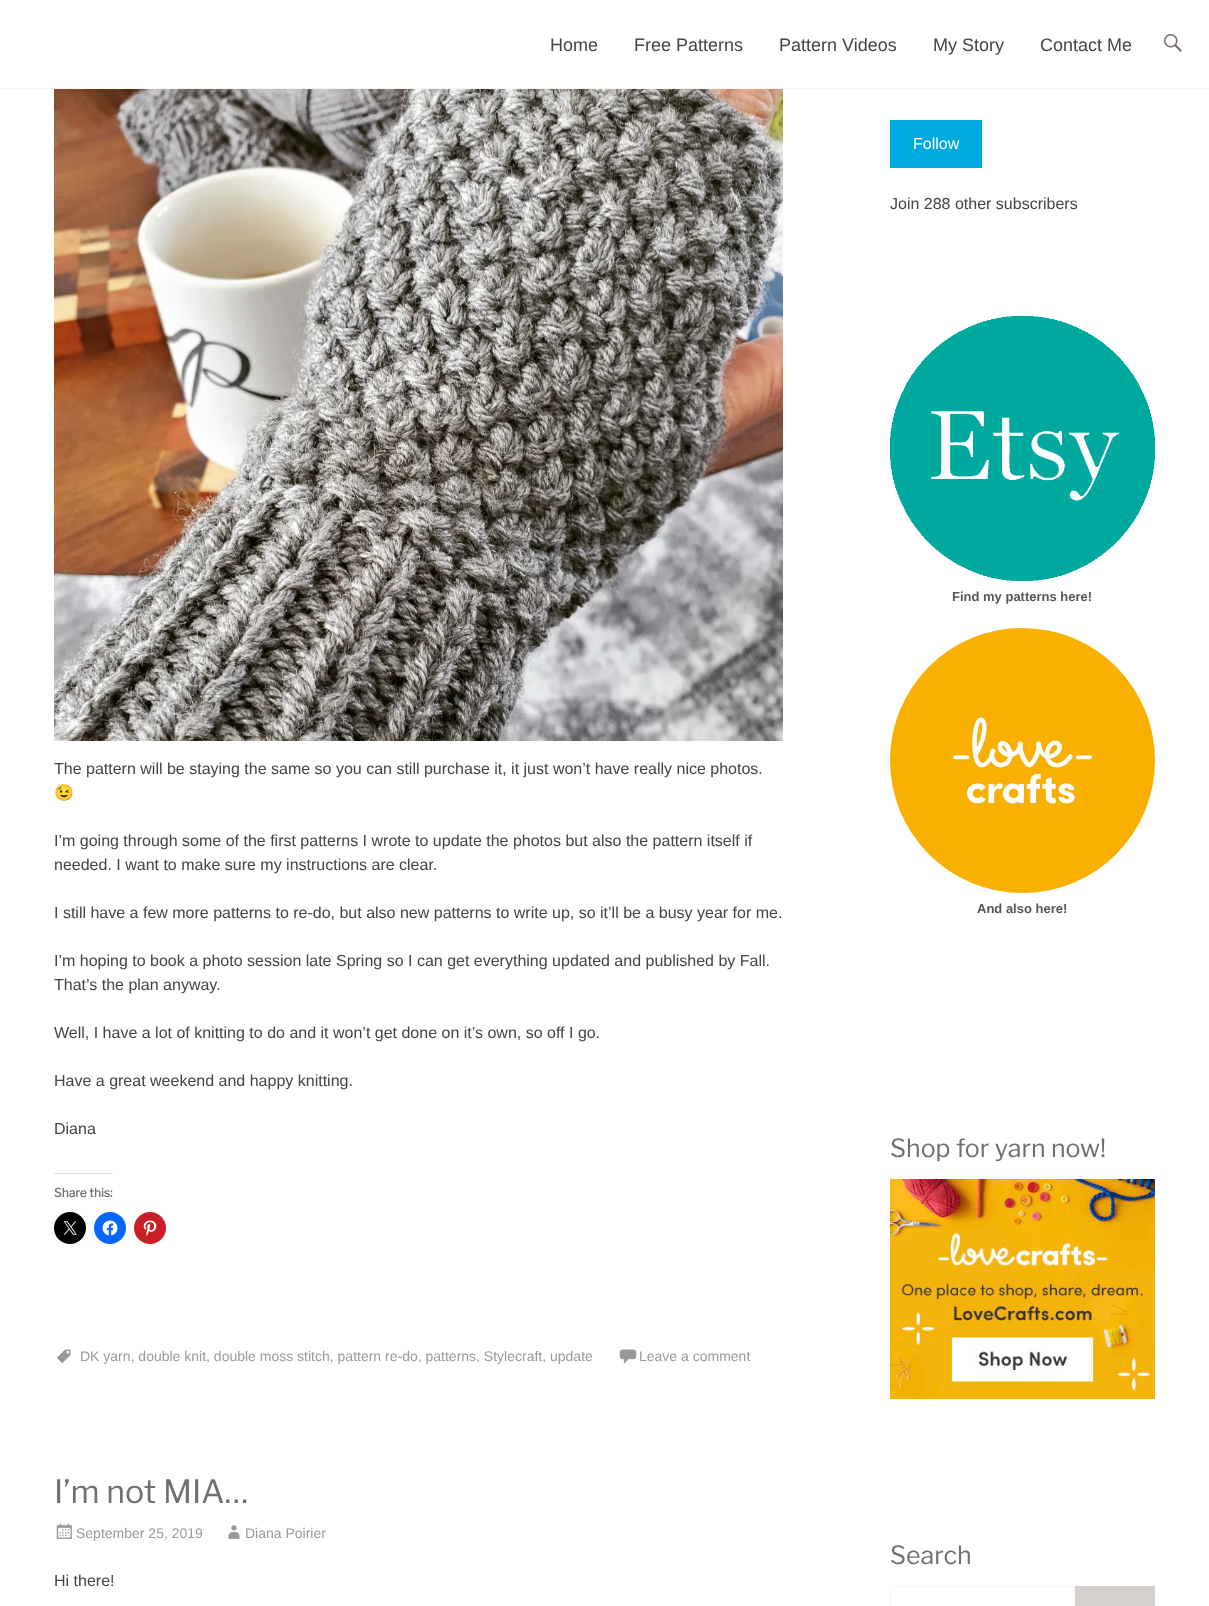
<!DOCTYPE html>
<meta charset="utf-8">
<style>body { margin: 0 } canvas { display: block }</style>
<canvas id="canvas" width="1209" height="1606"></canvas>
<script type="module">
  const canvas = document.getElementById("canvas");
  const ctx = canvas.getContext("2d");
  ctx.miterLimit = 4;
  ctx.fontKerning = "normal";
  async function loadImage(src) {
    const img = new Image();
    img.src = src;
    await img.decode();
    return img;
  }

  ctx.fillStyle = "#ffffff";
  ctx.fillRect(0, 0, 1209, 1606);
  ctx.fillStyle = "#f5f5f5";
  ctx.fillRect(0, 88, 1209, 1);
  ctx.font = "18px Arimo";
  ctx.fillStyle = "#444444";
  ctx.fillText("Home", 550, 51);
  ctx.fillText("Free Patterns", 634, 51);
  ctx.fillText("Pattern Videos", 779, 51);
  ctx.fillText("My Story", 933, 51);
  ctx.fillText("Contact Me", 1040, 51);
  ctx.drawImage(await loadImage("img1.png"), 1164, 34, 18, 18);
  ctx.drawImage(await loadImage("img2.png"), 54, 89, 729, 652);
  ctx.font = "16px Arimo";
  ctx.fillText("The pattern will be staying the same so you can still purchase it, it just won’t have really nice photos.", 54, 774);
  ctx.font = "16px Noto Color Emoji";
  ctx.fillText("😉", 54, 798);
  ctx.font = "16px Arimo";
  ctx.fillText("I’m going through some of the first patterns I wrote to update the photos but also the pattern itself if", 54, 846);
  ctx.fillText("needed. I want to make sure my instructions are clear.", 54, 870);
  ctx.fillText("I still have a few more patterns to re-do, but also new patterns to write up, so it’ll be a busy year for me.", 54, 918);
  ctx.fillText("I’m hoping to book a photo session late Spring so I can get everything updated and published by Fall.", 54, 966);
  ctx.fillText("That’s the plan anyway.", 54, 990);
  ctx.fillText("Well, I have a lot of knitting to do and it won’t get done on it’s own, so off I go.", 54, 1038);
  ctx.fillText("Have a great weekend and happy knitting.", 54, 1086);
  ctx.fillText("Diana", 54, 1134);
  ctx.fillStyle = "#dcdcde";
  ctx.fillRect(54, 1173, 59, 1);
  ctx.font = "bold 12px Libre Franklin";
  ctx.fillStyle = "#726d6e";
  ctx.fillText("Share this:", 54, 1197);
  ctx.fillStyle = "#000000";
  ctx.beginPath();
  ctx.arc(70, 1228, 16, 0, Math.PI * 2);
  ctx.fill();
  ctx.drawImage(await loadImage("img3.png"), 63, 1221, 14, 14);
  ctx.fillStyle = "#0866ff";
  ctx.beginPath();
  ctx.arc(110, 1228, 16, 0, Math.PI * 2);
  ctx.fill();
  ctx.drawImage(await loadImage("img4.png"), 102, 1220, 16, 16);
  ctx.fillStyle = "#ca1f27";
  ctx.beginPath();
  ctx.arc(150, 1228, 16, 0, Math.PI * 2);
  ctx.fill();
  ctx.drawImage(await loadImage("img5.png"), 143, 1220, 14, 16);
  ctx.drawImage(await loadImage("img6.png"), 56, 1349, 15, 15);
  ctx.font = "14px Arimo";
  ctx.fillStyle = "#999999";
  ctx.fillText("DK yarn, double knit, double moss stitch, pattern re-do, patterns, Stylecraft, update", 80, 1361);
  ctx.drawImage(await loadImage("img7.png"), 619, 1349, 18, 15);
  ctx.fillText("Leave a comment", 639, 1361);
  ctx.font = "100 32px Libre Franklin";
  ctx.fillStyle = "#726d6e";
  ctx.fillText("I’m not MIA…", 54, 1503);
  ctx.drawImage(await loadImage("img8.png"), 56, 1523, 16, 16);
  ctx.font = "14px Arimo";
  ctx.fillStyle = "#999999";
  ctx.fillText("September 25, 2019", 76, 1538);
  ctx.drawImage(await loadImage("img9.png"), 228, 1525, 12, 14);
  ctx.fillText("Diana Poirier", 245, 1538);
  ctx.font = "16px Arimo";
  ctx.fillStyle = "#444444";
  ctx.fillText("Hi there!", 54, 1586);
  ctx.fillStyle = "#00a9e0";
  ctx.fillRect(890, 120, 92, 48);
  ctx.fillStyle = "#ffffff";
  ctx.fillText("Follow", 913, 149);
  ctx.fillStyle = "#444444";
  ctx.fillText("Join 288 other subscribers", 890, 209);
  ctx.drawImage(await loadImage("img10.png"), 890, 316, 265, 265);
  ctx.font = "bold 13px Arimo";
  ctx.fillStyle = "#555555";
  ctx.fillText("Find my patterns here!", 952, 601);
  ctx.drawImage(await loadImage("img11.png"), 890, 628, 265, 265);
  ctx.fillText("And also here!", 977, 913);
  ctx.font = "100 25px Libre Franklin";
  ctx.fillStyle = "#726d6e";
  ctx.fillText("Shop for yarn now!", 890, 1157);
  ctx.drawImage(await loadImage("img12.png"), 890, 1179, 265, 220);
  ctx.fillText("Search", 890, 1564);
  ctx.beginPath();
  ctx.roundRect(890.5, 1586.5, 191, 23, 2.5);
  ctx.strokeStyle = "#f5f5f5";
  ctx.stroke();
  ctx.fillStyle = "#d6d0cf";
  ctx.fillRect(1075, 1586, 80, 20);
</script>
